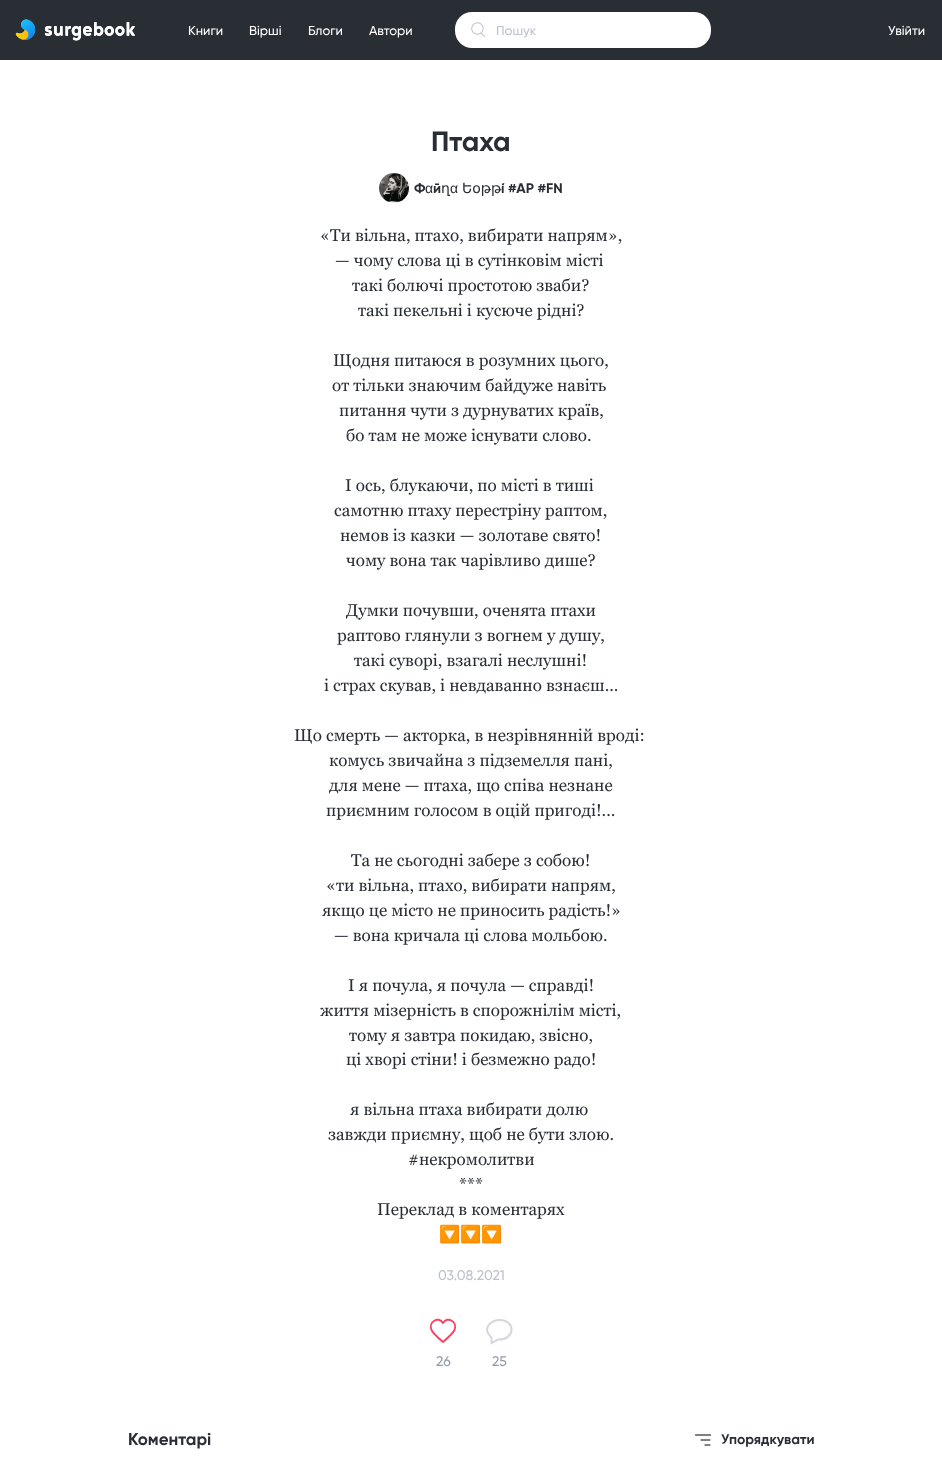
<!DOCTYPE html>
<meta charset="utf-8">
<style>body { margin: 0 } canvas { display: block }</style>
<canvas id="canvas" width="942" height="1475"></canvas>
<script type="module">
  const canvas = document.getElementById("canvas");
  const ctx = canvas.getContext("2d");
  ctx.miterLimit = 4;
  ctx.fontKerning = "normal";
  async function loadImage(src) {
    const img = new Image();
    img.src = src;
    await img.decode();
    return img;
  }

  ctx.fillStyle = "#ffffff";
  ctx.fillRect(0, 0, 942, 1475);
  ctx.fillStyle = "#292d34";
  ctx.fillRect(0, 0, 942, 60);
  ctx.drawImage(await loadImage("img1.png"), 15, 19, 120, 22);
  ctx.font = "500 13px Gilroy";
  ctx.fillStyle = "#ffffff";
  ctx.fillText("Книги", 188, 35);
  ctx.fillText("Вірші", 249, 35);
  ctx.fillText("Блоги", 308, 35);
  ctx.fillText("Автори", 369, 35);
  ctx.beginPath();
  ctx.roundRect(455, 12, 256, 36, 17);
  ctx.fill();
  ctx.drawImage(await loadImage("img2.png"), 471, 22, 15, 15);
  ctx.fillStyle = "#bcc3ce";
  ctx.fillText("Пошук", 496, 35);
  ctx.fillStyle = "#ffffff";
  ctx.fillText("Увійти", 888, 35);
  ctx.font = "bold 28px Gilroy";
  ctx.fillStyle = "#292d34";
  ctx.fillText("Птаха", 431, 151);
  ctx.drawImage(await loadImage("img3.png"), 379, 173, 30, 30);
  ctx.font = "bold 14px Gilroy";
  ctx.fillText("Ф", 414, 193);
  ctx.font = "14px Liberation Sans";
  ctx.fillText("α", 425, 193);
  ctx.font = "bold 14px Gilroy";
  ctx.fillText("й", 433, 193);
  ctx.font = "14px DejaVu Sans";
  ctx.fillText("ղ", 441, 193);
  ctx.font = "14px Liberation Sans";
  ctx.fillText("α", 450, 193);
  ctx.font = "14px DejaVu Sans";
  ctx.fillText("Եօթթ", 462, 193);
  ctx.font = "bold 14px Gilroy";
  ctx.fillText("í #AР #FN", 501, 193);
  ctx.font = "17px Georgia";
  ctx.fillText("«Ти вільна, птахо, вибирати напрям»,", 320, 241);
  ctx.fillText("— чому слова ці в сутінковім місті", 335, 266);
  ctx.fillText("такі болючі простотою зваби?", 352, 291);
  ctx.fillText("такі пекельні і кусюче рідні?", 358, 316);
  ctx.fillText("Щодня питаюся в розумних цього,", 333, 366);
  ctx.fillText("от тільки знаючим байдуже навіть", 332, 391);
  ctx.fillText("питання чути з дурнуватих країв,", 339, 416);
  ctx.fillText("бо там не може існувати слово.", 346, 441);
  ctx.fillText("І ось, блукаючи, по місті в тиші", 345, 491);
  ctx.fillText("самотню птаху перестріну раптом,", 334, 516);
  ctx.fillText("немов із казки — золотаве свято!", 340, 541);
  ctx.fillText("чому вона так чарівливо дише?", 346, 566);
  ctx.fillText("Думки почувши, оченята птахи", 346, 616);
  ctx.fillText("раптово глянули з вогнем у душу,", 337, 641);
  ctx.fillText("такі суворі, взагалі неслушні!", 354, 666);
  ctx.fillText("і страх скував, і невдаванно взнаєш...", 324, 691);
  ctx.fillText("Що смерть — акторка, в незрівнянній вроді:", 294, 741);
  ctx.fillText("комусь звичайна з підземелля пані,", 329, 766);
  ctx.fillText("для мене — птаха, що співа незнане", 329, 791);
  ctx.fillText("приємним голосом в оцій пригоді!...", 326, 816);
  ctx.fillText("Та не сьогодні забере з собою!", 351, 866);
  ctx.fillText("«ти вільна, птахо, вибирати напрям,", 326, 891);
  ctx.fillText("якщо це місто не приносить радість!»", 322, 916);
  ctx.fillText("— вона кричала ці слова мольбою.", 334, 941);
  ctx.fillText("І я почула, я почула — справді!", 348, 991);
  ctx.fillText("життя мізерність в спорожнілім місті,", 320, 1016);
  ctx.fillText("тому я завтра покидаю, звісно,", 349, 1041);
  ctx.fillText("ці хворі стіни! і безмежно радо!", 346, 1065);
  ctx.fillText("я вільна птаха вибирати долю", 350, 1115);
  ctx.fillText("завжди приємну, щоб не бути злою.", 328, 1140);
  ctx.fillText("#некромолитви", 408, 1165);
  ctx.fillText("***", 459, 1190);
  ctx.fillText("Переклад в коментарях", 377, 1215);
  ctx.font = "17px Noto Color Emoji";
  ctx.fillText("🔽🔽🔽", 439, 1240);
  ctx.font = "500 14px Gilroy";
  ctx.fillStyle = "#bcc3ce";
  ctx.fillText("03.08.2021", 438, 1280);
  ctx.beginPath();
  ctx.moveTo(443, 1323);
  ctx.bezierCurveTo(447.5, 1315.5, 458, 1322, 454.5, 1330);
  ctx.bezierCurveTo(452.5, 1334, 446.5, 1339, 443, 1342);
  ctx.bezierCurveTo(439.5, 1339, 433.5, 1334, 431.5, 1330);
  ctx.bezierCurveTo(428, 1322, 438.5, 1315.5, 443, 1323);
  ctx.closePath();
  ctx.strokeStyle = "#f94262";
  ctx.lineWidth = 1.9;
  ctx.lineCap = "round";
  ctx.lineJoin = "round";
  ctx.stroke();
  ctx.fillStyle = "#959baa";
  ctx.fillText("26", 436, 1366);
  ctx.beginPath();
  ctx.moveTo(499.5, 1320);
  ctx.bezierCurveTo(516.5, 1320, 515, 1340.5, 498, 1339.5);
  ctx.lineTo(491.5, 1343);
  ctx.lineTo(491.5, 1337.5);
  ctx.lineTo(488.5, 1334);
  ctx.bezierCurveTo(483.5, 1326.5, 492.5, 1320, 499.5, 1320);
  ctx.closePath();
  ctx.strokeStyle = "#d5d7dd";
  ctx.lineWidth = 2;
  ctx.lineCap = "butt";
  ctx.lineJoin = "miter";
  ctx.stroke();
  ctx.fillText("25", 492, 1366);
  ctx.font = "bold 17px Gilroy";
  ctx.fillStyle = "#292d34";
  ctx.fillText("Коментарі", 128, 1445);
  ctx.beginPath();
  ctx.moveTo(695.5, 1435);
  ctx.lineTo(710.5, 1435);
  ctx.moveTo(701, 1440);
  ctx.lineTo(710, 1440);
  ctx.moveTo(705, 1445);
  ctx.lineTo(710, 1445);
  ctx.strokeStyle = "#000000";
  ctx.lineWidth = 1;
  ctx.lineCap = "round";
  ctx.lineJoin = "round";
  ctx.stroke();
  ctx.font = "bold 14px Gilroy";
  ctx.fillText("Упорядкувати", 721, 1444);
</script>
